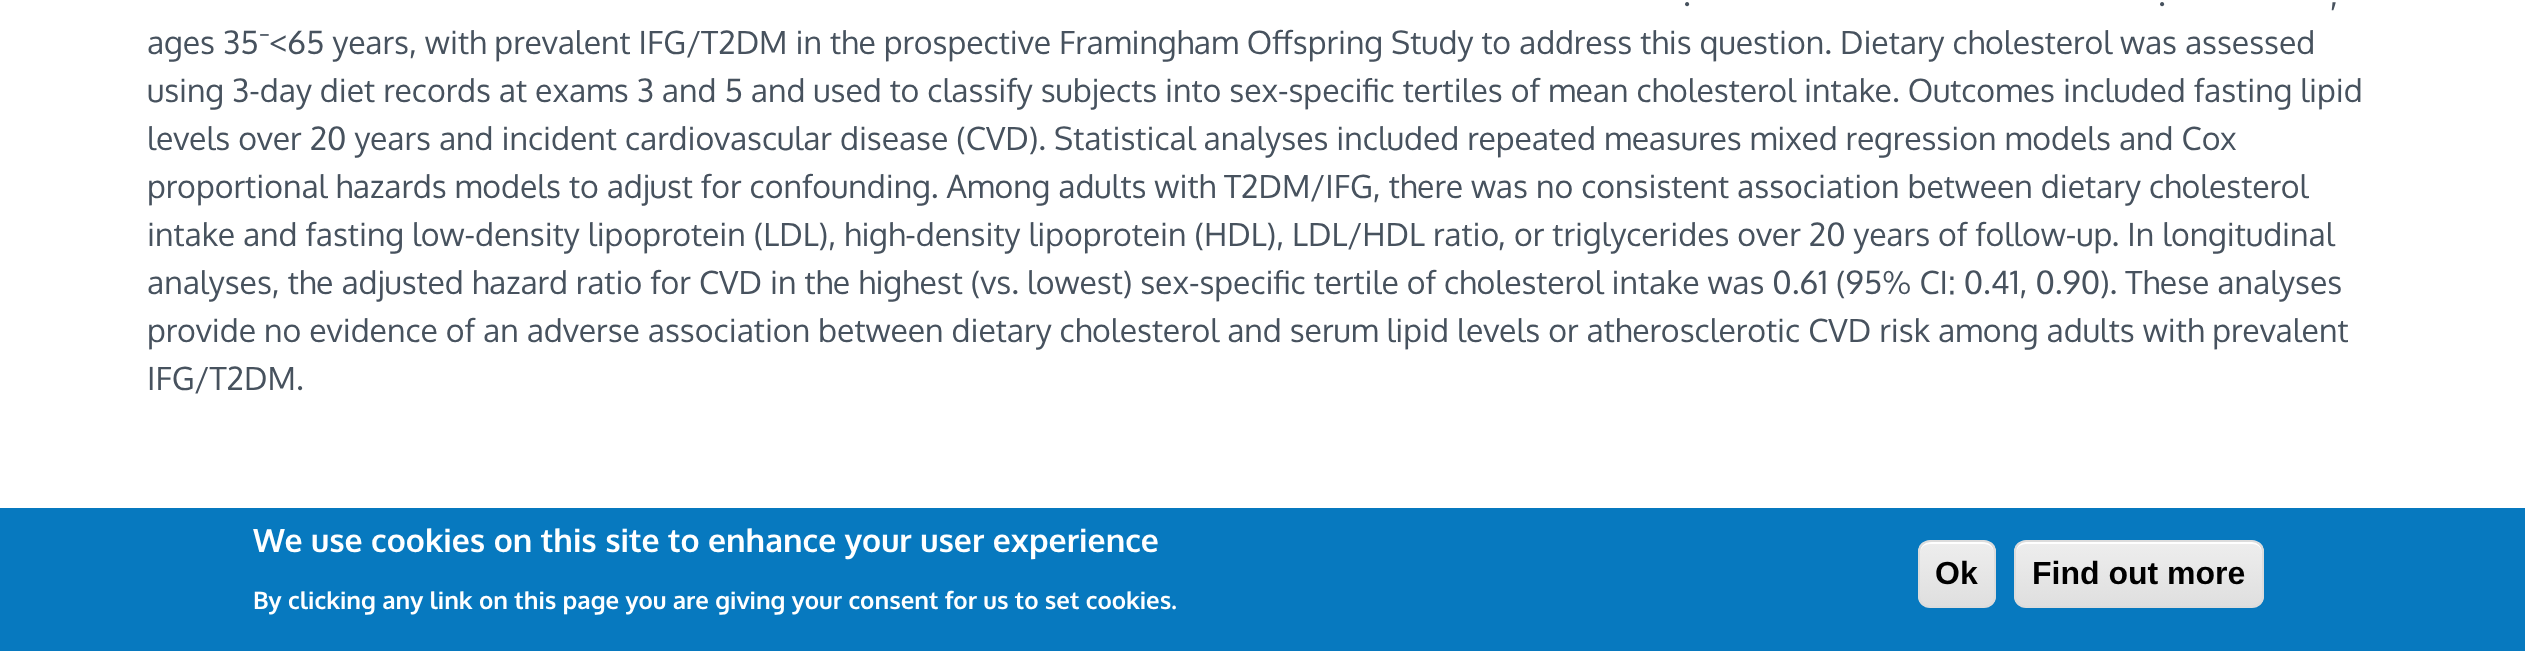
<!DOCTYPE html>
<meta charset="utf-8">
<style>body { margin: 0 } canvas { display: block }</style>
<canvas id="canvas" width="2525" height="651"></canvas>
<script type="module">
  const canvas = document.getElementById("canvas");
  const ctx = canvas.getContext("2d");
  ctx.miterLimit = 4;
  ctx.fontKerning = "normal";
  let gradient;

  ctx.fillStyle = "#ffffff";
  ctx.fillRect(0, 0, 2525, 651);
  ctx.font = "32px Oxygen";
  ctx.fillStyle = "#47525e";
  ctx.fillText(".", 1683, 6);
  ctx.fillText(".", 2158, 6);
  ctx.fillText(",", 2330, 6);
  ctx.fillText("ages 35", 147, 54);
  ctx.font = "32px Noto Sans";
  ctx.fillText("⁻", 259, 54);
  ctx.font = "32px Oxygen";
  ctx.fillText("<65 years, with prevalent IFG/T2DM in the prospective Framingham Offspring Study to address this question. Dietary cholesterol was assessed", 269, 54);
  ctx.fillText("using 3-day diet records at exams 3 and 5 and used to classify subjects into sex-specific tertiles of mean cholesterol intake. Outcomes included fasting lipid", 147, 102);
  ctx.fillText("levels over 20 years and incident cardiovascular disease (CVD). Statistical analyses included repeated measures mixed regression models and Cox", 147, 150);
  ctx.fillText("proportional hazards models to adjust for confounding. Among adults with T2DM/IFG, there was no consistent association between dietary cholesterol", 147, 198);
  ctx.fillText("intake and fasting low-density lipoprotein (LDL), high-density lipoprotein (HDL), LDL/HDL ratio, or triglycerides over 20 years of follow-up. In longitudinal", 147, 246);
  ctx.fillText("analyses, the adjusted hazard ratio for CVD in the highest (vs. lowest) sex-specific tertile of cholesterol intake was 0.61 (95% CI: 0.41, 0.90). These analyses", 147, 294);
  ctx.fillText("provide no evidence of an adverse association between dietary cholesterol and serum lipid levels or atherosclerotic CVD risk among adults with prevalent", 147, 342);
  ctx.fillText("IFG/T2DM.", 147, 390);
  ctx.fillStyle = "#0779bf";
  ctx.fillRect(0, 508, 2525, 143);
  ctx.font = "bold 32px Oxygen";
  ctx.fillStyle = "#ffffff";
  ctx.fillText("We use cookies on this site to enhance your user experience", 253, 552);
  ctx.font = "bold 24px Oxygen";
  ctx.fillText("By clicking any link on this page you are giving your consent for us to set cookies.", 253, 609);
  ctx.save();
  ctx.beginPath();
  ctx.roundRect(1918, 540, 78, 68, 12);
  ctx.clip();
  gradient = ctx.createLinearGradient(1957, 542, 1957, 606);
  gradient.addColorStop(0.05, "#ededed");
  gradient.addColorStop(1, "#dfdfdf");
  ctx.fillStyle = gradient;
  ctx.fillRect(1918, 542, 78, 64);
  ctx.restore();
  ctx.beginPath();
  ctx.moveTo(1930, 544);
  ctx.lineTo(1984, 544);
  ctx.bezierCurveTo(1990, 544, 1994, 548, 1994, 554);
  ctx.bezierCurveTo(1994, 541, 1985, 542, 1975, 542);
  ctx.lineTo(1939, 542);
  ctx.bezierCurveTo(1929, 542, 1920, 541, 1920, 554);
  ctx.bezierCurveTo(1920, 548, 1924, 544, 1930, 544);
  ctx.closePath();
  ctx.fill();
  ctx.beginPath();
  ctx.roundRect(1919, 541, 76, 66, 11);
  ctx.strokeStyle = "#dcdcdc";
  ctx.lineWidth = 2;
  ctx.stroke();
  ctx.font = "bold 32px Liberation Sans";
  ctx.fillStyle = "#000000";
  ctx.fillText("Ok", 1935, 584);
  ctx.save();
  ctx.beginPath();
  ctx.roundRect(2014, 540, 250, 68, 12);
  ctx.clip();
  gradient = ctx.createLinearGradient(2139, 542, 2139, 606);
  gradient.addColorStop(0.05, "#ededed");
  gradient.addColorStop(1, "#dfdfdf");
  ctx.fillStyle = gradient;
  ctx.fillRect(2014, 542, 250, 64);
  ctx.restore();
  ctx.fillStyle = "#ffffff";
  ctx.beginPath();
  ctx.moveTo(2026, 544);
  ctx.lineTo(2252, 544);
  ctx.bezierCurveTo(2258, 544, 2262, 548, 2262, 554);
  ctx.lineTo(2262, 552);
  ctx.bezierCurveTo(2262, 546, 2258, 542, 2252, 542);
  ctx.lineTo(2026, 542);
  ctx.bezierCurveTo(2020, 542, 2016, 546, 2016, 552);
  ctx.lineTo(2016, 554);
  ctx.bezierCurveTo(2016, 548, 2020, 544, 2026, 544);
  ctx.closePath();
  ctx.fill();
  ctx.beginPath();
  ctx.roundRect(2015, 541, 248, 66, 11);
  ctx.stroke();
  ctx.fillStyle = "#000000";
  ctx.fillText("Find out more", 2032, 584);
</script>
